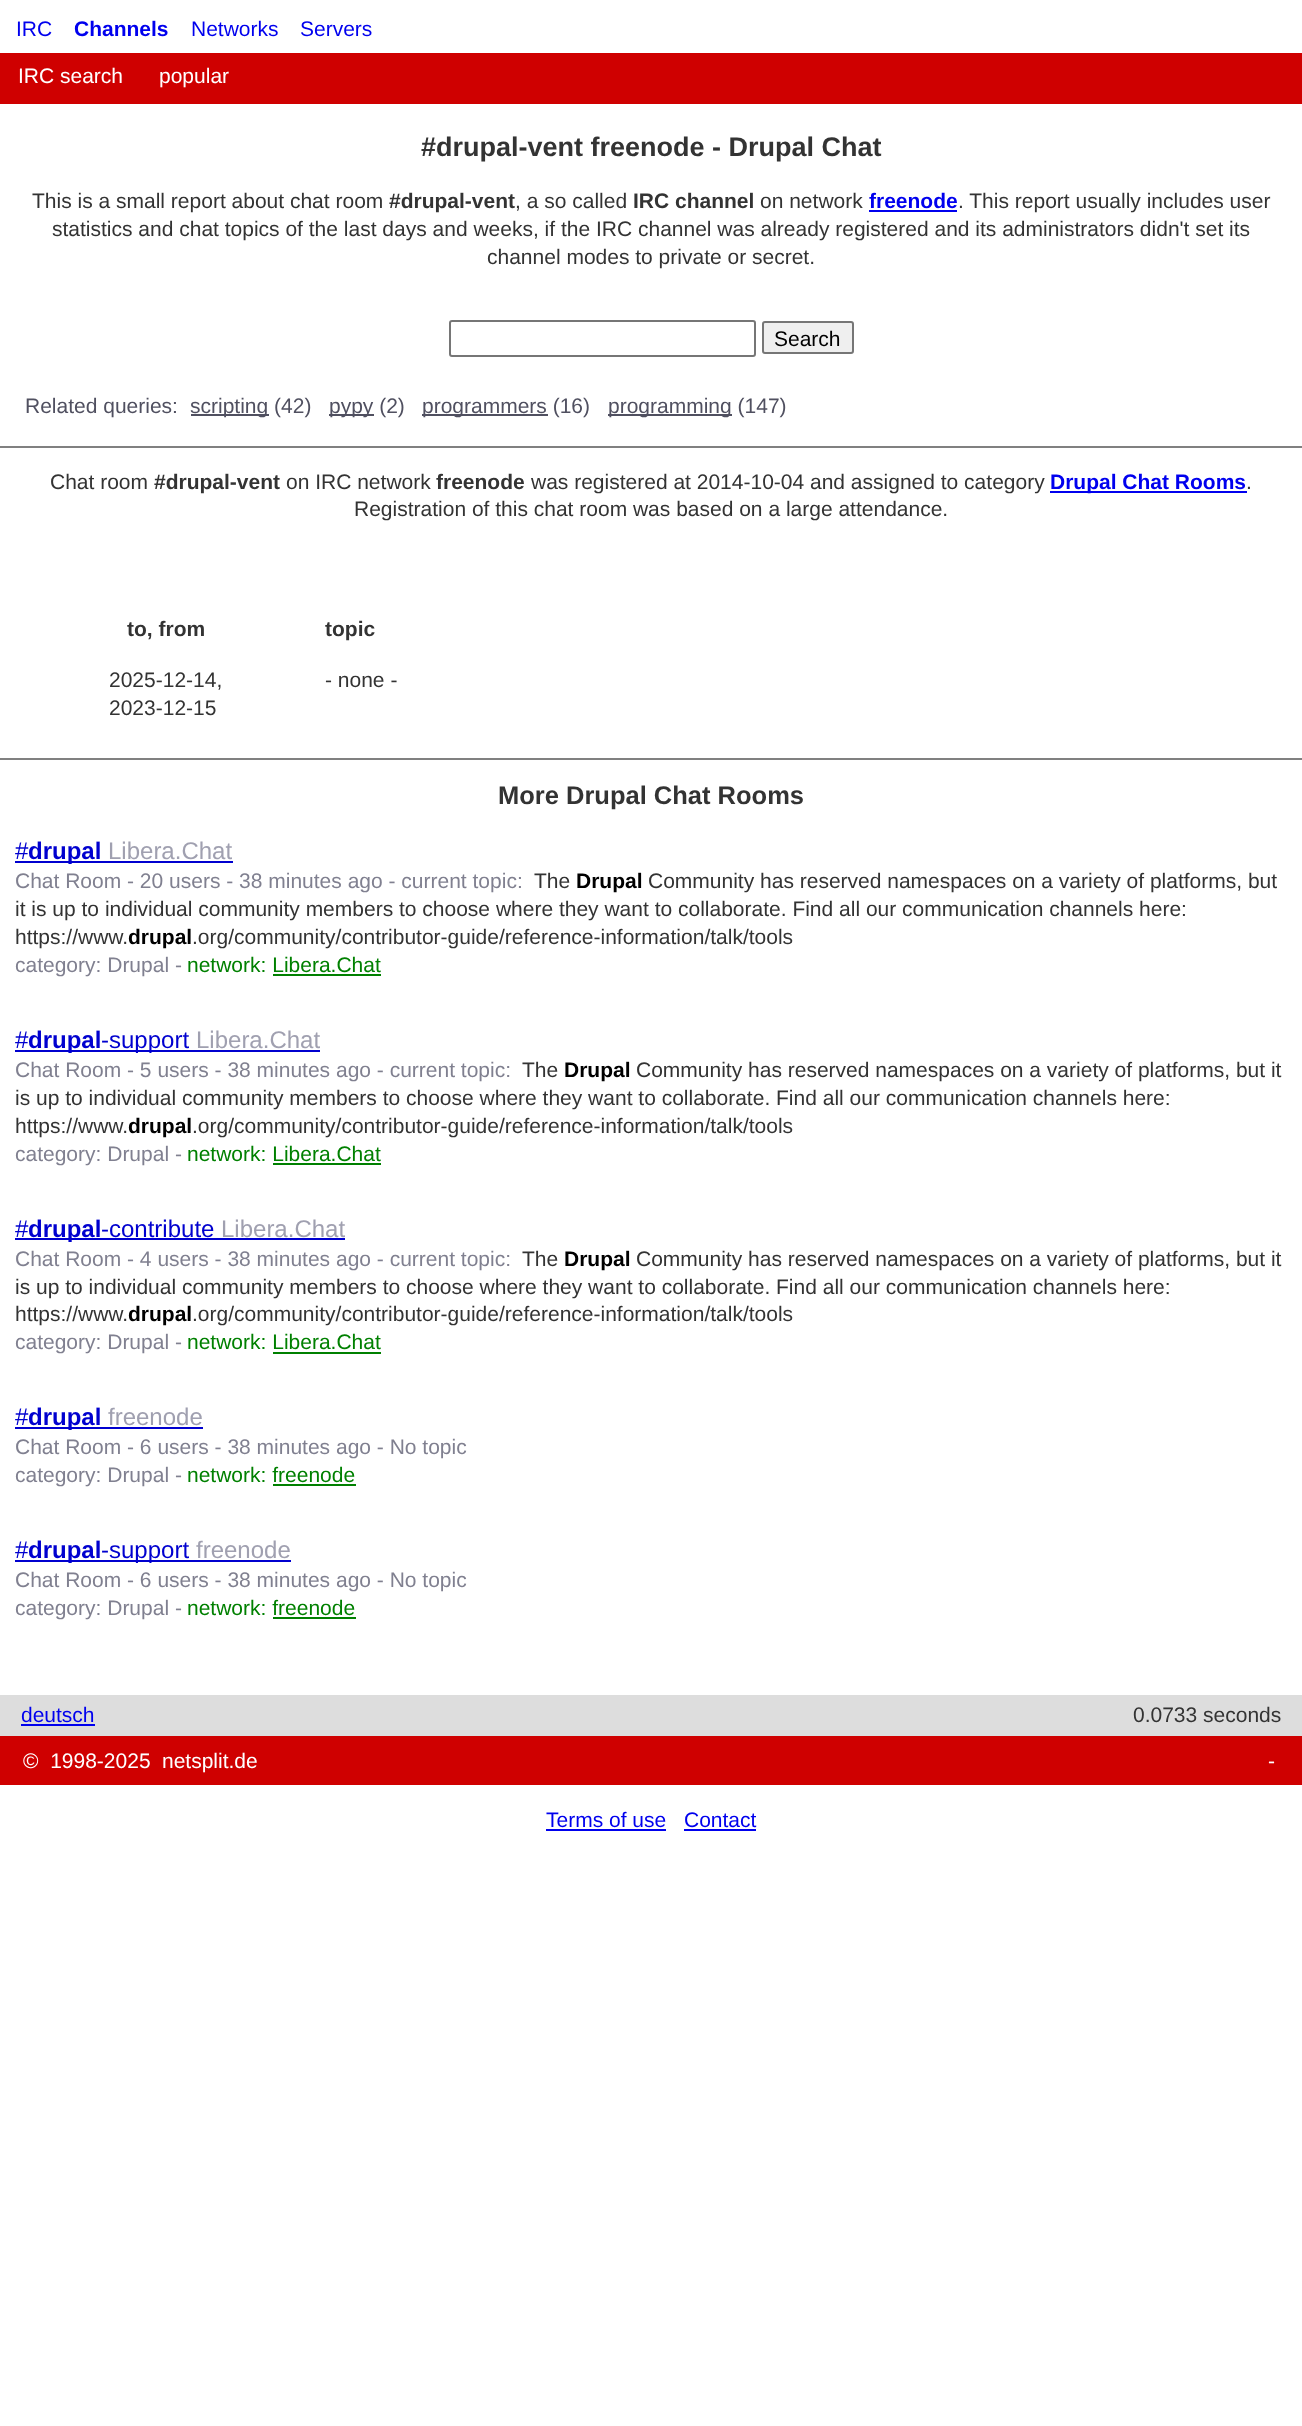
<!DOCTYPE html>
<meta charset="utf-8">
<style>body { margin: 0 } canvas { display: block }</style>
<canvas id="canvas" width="1302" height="2426"></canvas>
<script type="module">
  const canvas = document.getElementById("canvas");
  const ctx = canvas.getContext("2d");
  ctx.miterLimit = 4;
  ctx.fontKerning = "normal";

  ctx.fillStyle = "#ffffff";
  ctx.fillRect(0, 0, 1302, 2426);
  ctx.font = "21px Liberation Sans";
  ctx.fillStyle = "#0000ee";
  ctx.fillText("IRC", 16, 36);
  ctx.font = "bold 21px Liberation Sans";
  ctx.fillText("Channels", 74, 36);
  ctx.font = "21px Liberation Sans";
  ctx.fillText("Networks", 191, 36);
  ctx.fillText("Servers", 300, 36);
  ctx.fillStyle = "#cf0000";
  ctx.fillRect(0, 53, 1302, 51);
  ctx.fillStyle = "#ffffff";
  ctx.fillText("IRC search", 18, 83);
  ctx.fillText("popular", 159, 83);
  ctx.font = "bold 27px Liberation Sans";
  ctx.fillStyle = "#333333";
  ctx.fillText("#drupal-vent freenode - Drupal Chat", 421, 156);
  ctx.font = "21px Liberation Sans";
  ctx.fillText("This is a small report about chat room", 32, 208);
  ctx.font = "bold 21px Liberation Sans";
  ctx.fillText("#drupal-vent", 389, 208);
  ctx.font = "21px Liberation Sans";
  ctx.fillText(", a so called", 515, 208);
  ctx.font = "bold 21px Liberation Sans";
  ctx.fillText("IRC channel", 633, 208);
  ctx.font = "21px Liberation Sans";
  ctx.fillText("on network", 760, 208);
  ctx.font = "bold 21px Liberation Sans";
  ctx.fillStyle = "#0000ee";
  ctx.fillText("freenode", 869, 208);
  ctx.fillRect(869, 210, 88, 2);
  ctx.font = "21px Liberation Sans";
  ctx.fillStyle = "#333333";
  ctx.fillText(". This report usually includes user", 958, 208);
  ctx.fillText("statistics and chat topics of the last days and weeks, if the IRC channel was already registered and its administrators didn't set its", 52, 236);
  ctx.fillText("channel modes to private or secret.", 487, 264);
  ctx.beginPath();
  ctx.roundRect(450, 321, 305, 35, 2);
  ctx.strokeStyle = "#767676";
  ctx.lineWidth = 2;
  ctx.stroke();
  ctx.fillStyle = "#efefef";
  ctx.beginPath();
  ctx.roundRect(763, 322, 90, 31, 2);
  ctx.fill();
  ctx.stroke();
  ctx.fillStyle = "#000000";
  ctx.fillText("Search", 774, 346);
  ctx.fillStyle = "#505060";
  ctx.fillText("Related queries:", 25, 413);
  ctx.fillRect(191, 414, 78, 2);
  ctx.fillText("scripting (42)", 190, 413);
  ctx.fillRect(329, 414, 45, 2);
  ctx.fillText("pypy (2)", 329, 413);
  ctx.fillRect(422, 414, 126, 2);
  ctx.fillText("programmers (16)", 422, 413);
  ctx.fillRect(608, 414, 124, 2);
  ctx.fillText("programming (147)", 608, 413);
  ctx.fillStyle = "#808080";
  ctx.fillRect(0, 446, 1302, 2);
  ctx.fillStyle = "#333333";
  ctx.fillText("Chat room", 50, 489);
  ctx.font = "bold 21px Liberation Sans";
  ctx.fillText("#drupal-vent", 154, 489);
  ctx.font = "21px Liberation Sans";
  ctx.fillText("on IRC network", 286, 489);
  ctx.font = "bold 21px Liberation Sans";
  ctx.fillText("freenode", 436, 489);
  ctx.font = "21px Liberation Sans";
  ctx.fillText("was registered at 2014-10-04 and assigned to category", 531, 489);
  ctx.fillStyle = "#0000ee";
  ctx.fillRect(1050, 491, 197, 2);
  ctx.font = "bold 21px Liberation Sans";
  ctx.fillText("Drupal Chat Rooms", 1050, 489);
  ctx.font = "21px Liberation Sans";
  ctx.fillStyle = "#333333";
  ctx.fillText(".", 1246, 489);
  ctx.fillText("Registration of this chat room was based on a large attendance.", 354, 516);
  ctx.font = "bold 21px Liberation Sans";
  ctx.fillText("to, from", 127, 636);
  ctx.fillText("topic", 325, 636);
  ctx.font = "21px Liberation Sans";
  ctx.fillText("2025-12-14,", 109, 687);
  ctx.fillText("2023-12-15", 109, 715);
  ctx.fillText("- none -", 325, 687);
  ctx.fillStyle = "#808080";
  ctx.fillRect(0, 758, 1302, 2);
  ctx.font = "bold 25.5px Liberation Sans";
  ctx.fillStyle = "#333333";
  ctx.fillText("More Drupal Chat Rooms", 498, 804);
  ctx.font = "24px Liberation Sans";
  ctx.fillStyle = "#0000cf";
  ctx.fillText("#", 15, 859);
  ctx.fillRect(15, 861, 218, 2);
  ctx.font = "bold 24px Liberation Sans";
  ctx.fillText("drupal", 28, 859);
  ctx.font = "24px Liberation Sans";
  ctx.fillStyle = "#a0a0b0";
  ctx.fillText("Libera.Chat", 108, 859);
  ctx.font = "21px Liberation Sans";
  ctx.fillStyle = "#808090";
  ctx.fillText("Chat Room - 20 users - 38 minutes ago - current topic:", 15, 888);
  ctx.fillStyle = "#333333";
  ctx.fillText("The", 534, 888);
  ctx.font = "bold 21px Liberation Sans";
  ctx.fillStyle = "#000000";
  ctx.fillText("Drupal", 576, 888);
  ctx.font = "21px Liberation Sans";
  ctx.fillStyle = "#333333";
  ctx.fillText("Community has reserved namespaces on a variety of platforms, but", 648, 888);
  ctx.fillText("it is up to individual community members to choose where they want to collaborate. Find all our communication channels here:", 15, 916);
  ctx.fillText("https://www.", 15, 944);
  ctx.font = "bold 21px Liberation Sans";
  ctx.fillStyle = "#000000";
  ctx.fillText("drupal", 128, 944);
  ctx.font = "21px Liberation Sans";
  ctx.fillStyle = "#333333";
  ctx.fillText(".org/community/contributor-guide/reference-information/talk/tools", 192, 944);
  ctx.fillStyle = "#808090";
  ctx.fillText("category: Drupal -", 15, 972);
  ctx.fillStyle = "#008000";
  ctx.fillText("network: Libera.Chat", 187, 972);
  ctx.fillRect(273, 974, 108, 2);
  ctx.font = "24px Liberation Sans";
  ctx.fillStyle = "#0000cf";
  ctx.fillText("#", 15, 1048);
  ctx.fillRect(15, 1050, 174, 2);
  ctx.font = "bold 24px Liberation Sans";
  ctx.fillText("drupal", 28, 1048);
  ctx.font = "24px Liberation Sans";
  ctx.fillText("-support", 101, 1048);
  ctx.fillRect(189, 1050, 131, 2);
  ctx.fillStyle = "#a0a0b0";
  ctx.fillText("Libera.Chat", 196, 1048);
  ctx.font = "21px Liberation Sans";
  ctx.fillStyle = "#808090";
  ctx.fillText("Chat Room - 5 users - 38 minutes ago - current topic:", 15, 1077);
  ctx.fillStyle = "#333333";
  ctx.fillText("The", 522, 1077);
  ctx.font = "bold 21px Liberation Sans";
  ctx.fillStyle = "#000000";
  ctx.fillText("Drupal", 564, 1077);
  ctx.font = "21px Liberation Sans";
  ctx.fillStyle = "#333333";
  ctx.fillText("Community has reserved namespaces on a variety of platforms, but it", 636, 1077);
  ctx.fillText("is up to individual community members to choose where they want to collaborate. Find all our communication channels here:", 15, 1105);
  ctx.fillText("https://www.", 15, 1133);
  ctx.font = "bold 21px Liberation Sans";
  ctx.fillStyle = "#000000";
  ctx.fillText("drupal", 128, 1133);
  ctx.font = "21px Liberation Sans";
  ctx.fillStyle = "#333333";
  ctx.fillText(".org/community/contributor-guide/reference-information/talk/tools", 192, 1133);
  ctx.fillStyle = "#808090";
  ctx.fillText("category: Drupal -", 15, 1161);
  ctx.fillStyle = "#008000";
  ctx.fillText("network: Libera.Chat", 187, 1161);
  ctx.fillRect(273, 1163, 108, 2);
  ctx.font = "24px Liberation Sans";
  ctx.fillStyle = "#0000cf";
  ctx.fillText("#", 15, 1237);
  ctx.fillRect(15, 1238, 330, 2);
  ctx.font = "bold 24px Liberation Sans";
  ctx.fillText("drupal", 28, 1237);
  ctx.font = "24px Liberation Sans";
  ctx.fillText("-contribute", 101, 1237);
  ctx.fillStyle = "#a0a0b0";
  ctx.fillText("Libera.Chat", 221, 1237);
  ctx.font = "21px Liberation Sans";
  ctx.fillStyle = "#808090";
  ctx.fillText("Chat Room - 4 users - 38 minutes ago - current topic:", 15, 1266);
  ctx.fillStyle = "#333333";
  ctx.fillText("The", 522, 1266);
  ctx.font = "bold 21px Liberation Sans";
  ctx.fillStyle = "#000000";
  ctx.fillText("Drupal", 564, 1266);
  ctx.font = "21px Liberation Sans";
  ctx.fillStyle = "#333333";
  ctx.fillText("Community has reserved namespaces on a variety of platforms, but it", 636, 1266);
  ctx.fillText("is up to individual community members to choose where they want to collaborate. Find all our communication channels here:", 15, 1294);
  ctx.fillText("https://www.", 15, 1321);
  ctx.font = "bold 21px Liberation Sans";
  ctx.fillStyle = "#000000";
  ctx.fillText("drupal", 128, 1321);
  ctx.font = "21px Liberation Sans";
  ctx.fillStyle = "#333333";
  ctx.fillText(".org/community/contributor-guide/reference-information/talk/tools", 192, 1321);
  ctx.fillStyle = "#808090";
  ctx.fillText("category: Drupal -", 15, 1349);
  ctx.fillStyle = "#008000";
  ctx.fillText("network: Libera.Chat", 187, 1349);
  ctx.fillRect(273, 1352, 108, 2);
  ctx.font = "24px Liberation Sans";
  ctx.fillStyle = "#0000cf";
  ctx.fillText("#", 15, 1425);
  ctx.fillRect(15, 1427, 188, 2);
  ctx.font = "bold 24px Liberation Sans";
  ctx.fillText("drupal", 28, 1425);
  ctx.font = "24px Liberation Sans";
  ctx.fillStyle = "#a0a0b0";
  ctx.fillText("freenode", 108, 1425);
  ctx.font = "21px Liberation Sans";
  ctx.fillStyle = "#808090";
  ctx.fillText("Chat Room - 6 users - 38 minutes ago - No topic", 15, 1454);
  ctx.fillText("category: Drupal -", 15, 1482);
  ctx.fillStyle = "#008000";
  ctx.fillText("network: freenode", 187, 1482);
  ctx.fillRect(273, 1484, 83, 2);
  ctx.font = "24px Liberation Sans";
  ctx.fillStyle = "#0000cf";
  ctx.fillText("#", 15, 1558);
  ctx.fillRect(15, 1560, 174, 2);
  ctx.font = "bold 24px Liberation Sans";
  ctx.fillText("drupal", 28, 1558);
  ctx.font = "24px Liberation Sans";
  ctx.fillText("-support", 101, 1558);
  ctx.fillRect(189, 1560, 102, 2);
  ctx.fillStyle = "#a0a0b0";
  ctx.fillText("freenode", 196, 1558);
  ctx.font = "21px Liberation Sans";
  ctx.fillStyle = "#808090";
  ctx.fillText("Chat Room - 6 users - 38 minutes ago - No topic", 15, 1587);
  ctx.fillText("category: Drupal -", 15, 1615);
  ctx.fillStyle = "#008000";
  ctx.fillText("network: freenode", 187, 1615);
  ctx.fillRect(273, 1617, 83, 2);
  ctx.fillStyle = "#dddddd";
  ctx.fillRect(0, 1695, 1302, 41);
  ctx.fillStyle = "#0000ee";
  ctx.fillText("deutsch", 21, 1722);
  ctx.fillRect(21, 1724, 74, 2);
  ctx.fillStyle = "#333333";
  ctx.fillText("0.0733 seconds", 1133, 1722);
  ctx.fillStyle = "#cf0000";
  ctx.fillRect(0, 1736, 1302, 49);
  ctx.fillStyle = "#ffffff";
  ctx.fillText("©  1998-2025", 23, 1768);
  ctx.fillText("netsplit.de", 162, 1768);
  ctx.fillText("-", 1268, 1768);
  ctx.fillStyle = "#0000ee";
  ctx.fillText("Terms of use", 546, 1827);
  ctx.fillRect(546, 1829, 120, 2);
  ctx.fillText("Contact", 684, 1827);
  ctx.fillRect(684, 1829, 72, 2);
</script>
